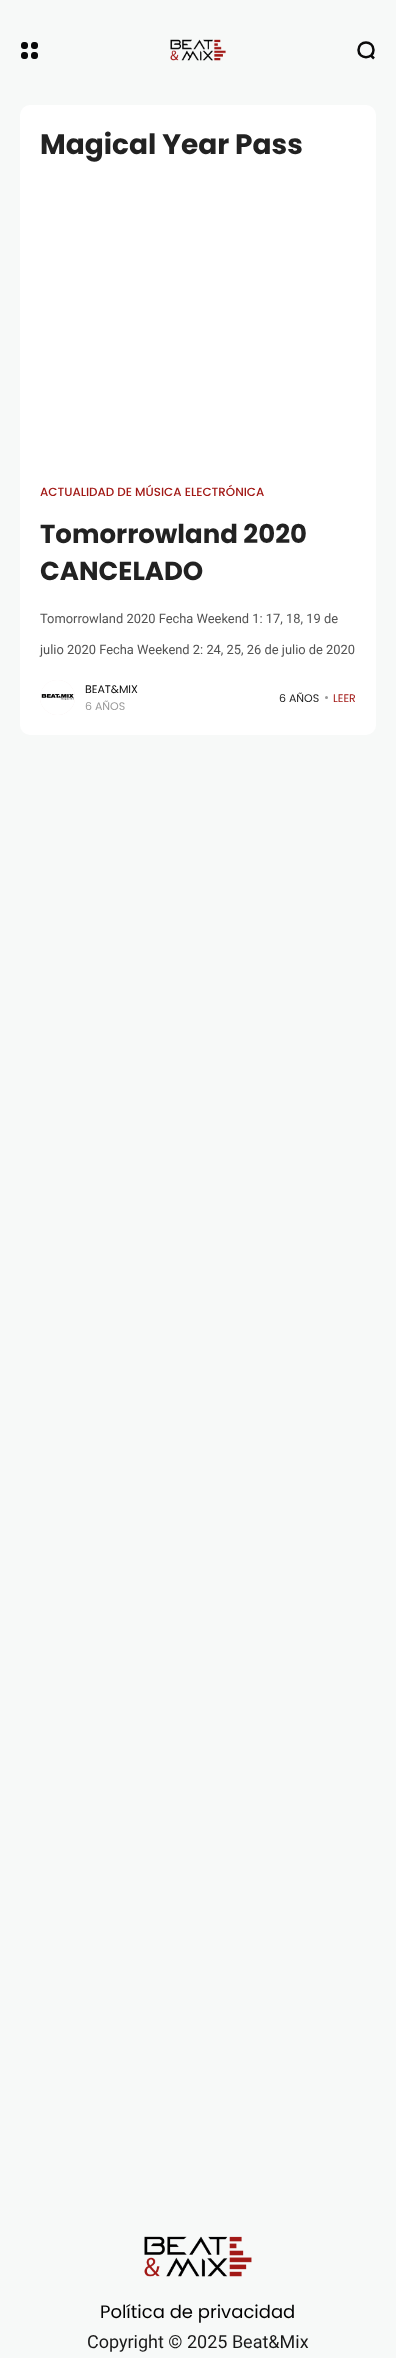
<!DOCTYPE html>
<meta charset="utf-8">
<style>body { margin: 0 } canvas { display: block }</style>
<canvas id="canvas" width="396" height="2358"></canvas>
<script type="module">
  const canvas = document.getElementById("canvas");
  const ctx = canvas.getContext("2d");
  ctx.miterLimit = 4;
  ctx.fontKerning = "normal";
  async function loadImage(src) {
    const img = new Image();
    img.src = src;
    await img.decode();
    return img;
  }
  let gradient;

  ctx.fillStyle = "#f7f9f8";
  ctx.fillRect(0, 0, 396, 2358);
  ctx.drawImage(await loadImage("img1.png"), 21, 42, 17, 17);
  ctx.drawImage(await loadImage("img2.png"), 170, 39, 56, 22);
  ctx.beginPath();
  ctx.moveTo(358.5, 50);
  ctx.bezierCurveTo(358.5, 59.5, 373.5, 59.5, 373.5, 50);
  ctx.bezierCurveTo(373.5, 40, 358.5, 40, 358.5, 50);
  ctx.moveTo(371, 55.5);
  ctx.lineTo(374, 58.5);
  ctx.strokeStyle = "#0a0a0a";
  ctx.lineWidth = 2.5;
  ctx.stroke();
  ctx.fillStyle = "#ffffff";
  ctx.beginPath();
  ctx.roundRect(20, 105, 356, 630, 10);
  ctx.fill();
  ctx.font = "bold 28px Poppins";
  ctx.fillStyle = "#222222";
  ctx.fillText("Magical Year Pass", 40, 154);
  ctx.font = "500 11.9px Poppins";
  ctx.fillStyle = "#a21916";
  ctx.fillText("ACTUALIDAD DE MÚSICA ELECTRÓNICA", 40, 496);
  ctx.font = "bold 26px Poppins";
  ctx.fillStyle = "#222222";
  ctx.fillText("Tomorrowland 2020", 40, 543);
  ctx.fillText("CANCELADO", 40, 580);
  ctx.font = "12.9px Roboto";
  ctx.fillStyle = "#535353";
  ctx.fillText("Tomorrowland 2020 Fecha Weekend 1: 17, 18, 19 de", 40, 623);
  ctx.fillText("julio 2020 Fecha Weekend 2: 24, 25, 26 de julio de 2020", 40, 654);
  gradient = ctx.createLinearGradient(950, 1590, -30, 610);
  gradient.addColorStop(0, "#a21916");
  gradient.addColorStop(1, "#ffffff");
  ctx.fillStyle = gradient;
  ctx.beginPath();
  ctx.arc(57.5, 697.5, 17.5, 0, Math.PI * 2);
  ctx.fill();
  ctx.drawImage(await loadImage("img3.png"), 40, 680, 35, 35);
  ctx.font = "11px Poppins";
  ctx.fillStyle = "#0a0a0a";
  ctx.fillText("BEAT&MIX", 85, 693);
  ctx.fillStyle = "#999999";
  ctx.fillText("6 AÑOS", 85, 710);
  ctx.fillStyle = "#222222";
  ctx.fillText("6 AÑOS", 279, 702);
  ctx.fillStyle = "#999999";
  ctx.beginPath();
  ctx.arc(326.5, 697.5, 1.5, 0, Math.PI * 2);
  ctx.fill();
  ctx.fillStyle = "#a21916";
  ctx.fillText("LEER", 333, 702);
  ctx.drawImage(await loadImage("img4.png"), 144, 2236, 108, 41);
  ctx.font = "18px Poppins";
  ctx.fillStyle = "#000000";
  ctx.fillText("Política de privacidad", 100, 2318);
  ctx.font = "18px Roboto";
  ctx.fillStyle = "#191919";
  ctx.fillText("Copyright © 2025 Beat&Mix", 87, 2348);
</script>
